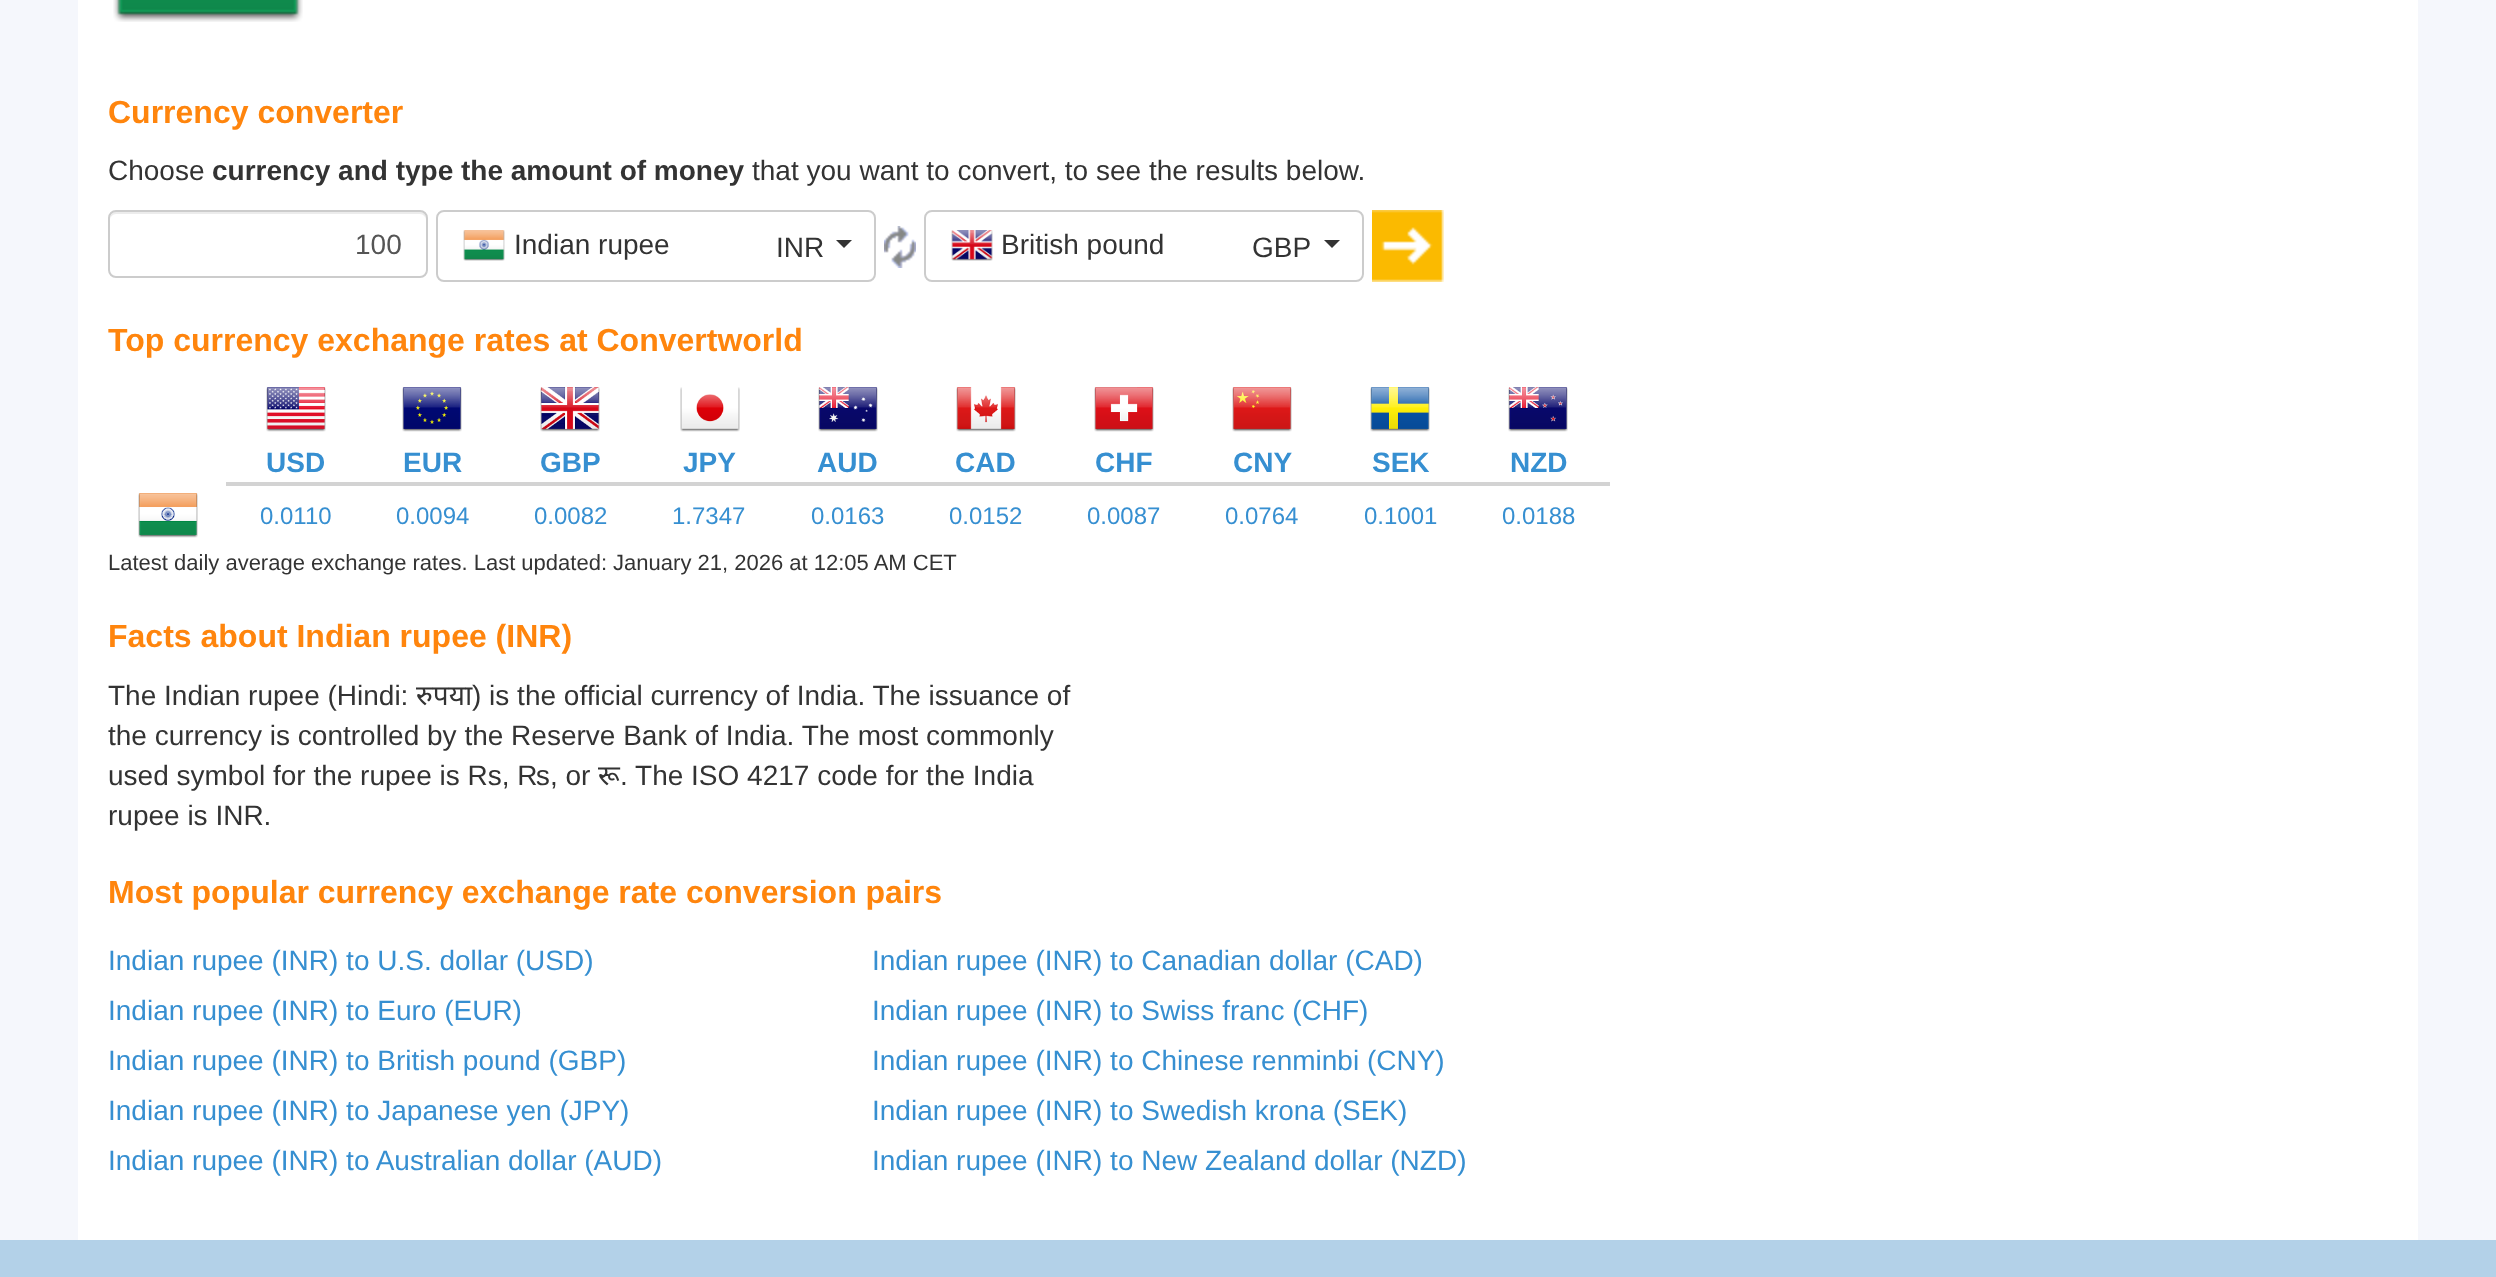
<!DOCTYPE html>
<meta charset="utf-8">
<style>body { margin: 0 } canvas { display: block }</style>
<canvas id="canvas" width="2496" height="1277"></canvas>
<script type="module">
  const canvas = document.getElementById("canvas");
  const ctx = canvas.getContext("2d");
  ctx.miterLimit = 4;
  ctx.fontKerning = "normal";
  async function loadImage(src) {
    const img = new Image();
    img.src = src;
    await img.decode();
    return img;
  }

  ctx.fillStyle = "#f5f7fc";
  ctx.fillRect(0, 0, 2496, 1277);
  ctx.fillStyle = "#ffffff";
  ctx.fillRect(78, 0, 2340, 1240);
  ctx.drawImage(await loadImage("img1.png"), 113, 0, 190, 22);
  ctx.font = "bold 32px Liberation Sans";
  ctx.fillStyle = "#ff850d";
  ctx.fillText("Currency converter", 108, 123);
  ctx.font = "28px Liberation Sans";
  ctx.fillStyle = "#333333";
  ctx.fillText("Choose", 108, 180);
  ctx.font = "bold 28px Liberation Sans";
  ctx.fillText("currency and type the amount of money", 212, 180);
  ctx.font = "28px Liberation Sans";
  ctx.fillText("that you want to convert, to see the results below.", 752, 180);
  ctx.fillStyle = "#ececec";
  ctx.beginPath();
  ctx.moveTo(116, 214);
  ctx.lineTo(420, 214);
  ctx.bezierCurveTo(423, 214, 426, 217, 426, 220);
  ctx.bezierCurveTo(426, 216, 425, 212, 420, 212);
  ctx.lineTo(115, 212);
  ctx.bezierCurveTo(111, 213, 110, 217, 110, 220);
  ctx.bezierCurveTo(110, 217, 113, 214, 116, 214);
  ctx.closePath();
  ctx.fill();
  ctx.beginPath();
  ctx.roundRect(109, 211, 318, 66, 7);
  ctx.strokeStyle = "#cccccc";
  ctx.lineWidth = 2;
  ctx.stroke();
  ctx.fillStyle = "#555555";
  ctx.fillText("100", 355, 254);
  ctx.beginPath();
  ctx.roundRect(437, 211, 438, 70, 7);
  ctx.stroke();
  ctx.drawImage(await loadImage("img2.png"), 463, 230, 42, 31);
  ctx.fillStyle = "#333333";
  ctx.fillText("Indian rupee", 514, 254);
  ctx.fillText("INR", 776, 257);
  ctx.beginPath();
  ctx.moveTo(836, 240);
  ctx.lineTo(852, 240);
  ctx.lineTo(844, 248);
  ctx.closePath();
  ctx.fill();
  ctx.drawImage(await loadImage("img3.png"), 884, 226, 32, 42);
  ctx.beginPath();
  ctx.roundRect(925, 211, 438, 70, 7);
  ctx.stroke();
  ctx.drawImage(await loadImage("img4.png"), 951, 230, 42, 31);
  ctx.fillText("British pound", 1001, 254);
  ctx.fillText("GBP", 1252, 257);
  ctx.beginPath();
  ctx.moveTo(1324, 240);
  ctx.lineTo(1340, 240);
  ctx.lineTo(1332, 248);
  ctx.closePath();
  ctx.fill();
  ctx.drawImage(await loadImage("img5.png"), 1372, 210, 72, 72);
  ctx.font = "bold 32px Liberation Sans";
  ctx.fillStyle = "#ff850d";
  ctx.fillText("Top currency exchange rates at Convertworld", 108, 351);
  ctx.drawImage(await loadImage("img6.png"), 266, 387, 60, 45);
  ctx.font = "bold 28px Liberation Sans";
  ctx.fillStyle = "#368fd1";
  ctx.fillText("USD", 266, 472);
  ctx.drawImage(await loadImage("img7.png"), 402, 387, 60, 45);
  ctx.fillText("EUR", 403, 472);
  ctx.drawImage(await loadImage("img8.png"), 540, 387, 60, 45);
  ctx.fillText("GBP", 540, 472);
  ctx.drawImage(await loadImage("img9.png"), 680, 387, 60, 45);
  ctx.fillText("JPY", 683, 472);
  ctx.drawImage(await loadImage("img10.png"), 818, 387, 60, 45);
  ctx.fillText("AUD", 817, 472);
  ctx.drawImage(await loadImage("img11.png"), 956, 387, 60, 45);
  ctx.fillText("CAD", 955, 472);
  ctx.drawImage(await loadImage("img12.png"), 1094, 387, 60, 45);
  ctx.fillText("CHF", 1095, 472);
  ctx.drawImage(await loadImage("img13.png"), 1232, 387, 60, 45);
  ctx.fillText("CNY", 1233, 472);
  ctx.drawImage(await loadImage("img14.png"), 1370, 387, 60, 45);
  ctx.fillText("SEK", 1372, 472);
  ctx.fillStyle = "#d3d3d3";
  ctx.fillRect(226, 482, 1384, 4);
  ctx.drawImage(await loadImage("img15.png"), 1508, 387, 60, 45);
  ctx.fillStyle = "#368fd1";
  ctx.fillText("NZD", 1510, 472);
  ctx.drawImage(await loadImage("img16.png"), 138, 493, 60, 45);
  ctx.font = "24px Liberation Sans";
  ctx.fillText("0.0110", 260, 524);
  ctx.fillText("0.0094", 396, 524);
  ctx.fillText("0.0082", 534, 524);
  ctx.fillText("1.7347", 672, 524);
  ctx.fillText("0.0163", 811, 524);
  ctx.fillText("0.0152", 949, 524);
  ctx.fillText("0.0087", 1087, 524);
  ctx.fillText("0.0764", 1225, 524);
  ctx.fillText("0.1001", 1364, 524);
  ctx.fillText("0.0188", 1502, 524);
  ctx.font = "22px Liberation Sans";
  ctx.fillStyle = "#333333";
  ctx.fillText("Latest daily average exchange rates. Last updated: January 21, 2026 at 12:05 AM CET", 108, 570);
  ctx.font = "bold 32px Liberation Sans";
  ctx.fillStyle = "#ff850d";
  ctx.fillText("Facts about Indian rupee (INR)", 108, 647);
  ctx.font = "28px Liberation Sans";
  ctx.fillStyle = "#333333";
  ctx.fillText("The Indian rupee (Hindi:", 108, 705);
  ctx.font = "28px Noto Sans";
  ctx.fillText("रुपया", 416, 705);
  ctx.font = "28px Liberation Sans";
  ctx.fillText(") is the official currency of India. The issuance of", 472, 705);
  ctx.fillText("the currency is controlled by the Reserve Bank of India. The most commonly", 108, 745);
  ctx.fillText("used symbol for the rupee is Rs, ₨, or", 108, 785);
  ctx.font = "28px Noto Sans";
  ctx.fillText("रू", 598, 785);
  ctx.font = "28px Liberation Sans";
  ctx.fillText(". The ISO 4217 code for the India", 620, 785);
  ctx.fillText("rupee is INR.", 108, 825);
  ctx.font = "bold 32px Liberation Sans";
  ctx.fillStyle = "#ff850d";
  ctx.fillText("Most popular currency exchange rate conversion pairs", 108, 903);
  ctx.font = "28px Liberation Sans";
  ctx.fillStyle = "#368fd1";
  ctx.fillText("Indian rupee (INR) to U.S. dollar (USD)", 108, 970);
  ctx.fillText("Indian rupee (INR) to Canadian dollar (CAD)", 872, 970);
  ctx.fillText("Indian rupee (INR) to Euro (EUR)", 108, 1020);
  ctx.fillText("Indian rupee (INR) to Swiss franc (CHF)", 872, 1020);
  ctx.fillText("Indian rupee (INR) to British pound (GBP)", 108, 1070);
  ctx.fillText("Indian rupee (INR) to Chinese renminbi (CNY)", 872, 1070);
  ctx.fillText("Indian rupee (INR) to Japanese yen (JPY)", 108, 1120);
  ctx.fillText("Indian rupee (INR) to Swedish krona (SEK)", 872, 1120);
  ctx.fillText("Indian rupee (INR) to Australian dollar (AUD)", 108, 1170);
  ctx.fillText("Indian rupee (INR) to New Zealand dollar (NZD)", 872, 1170);
  ctx.fillStyle = "#b3d1e8";
  ctx.fillRect(0, 1240, 2496, 37);
</script>
